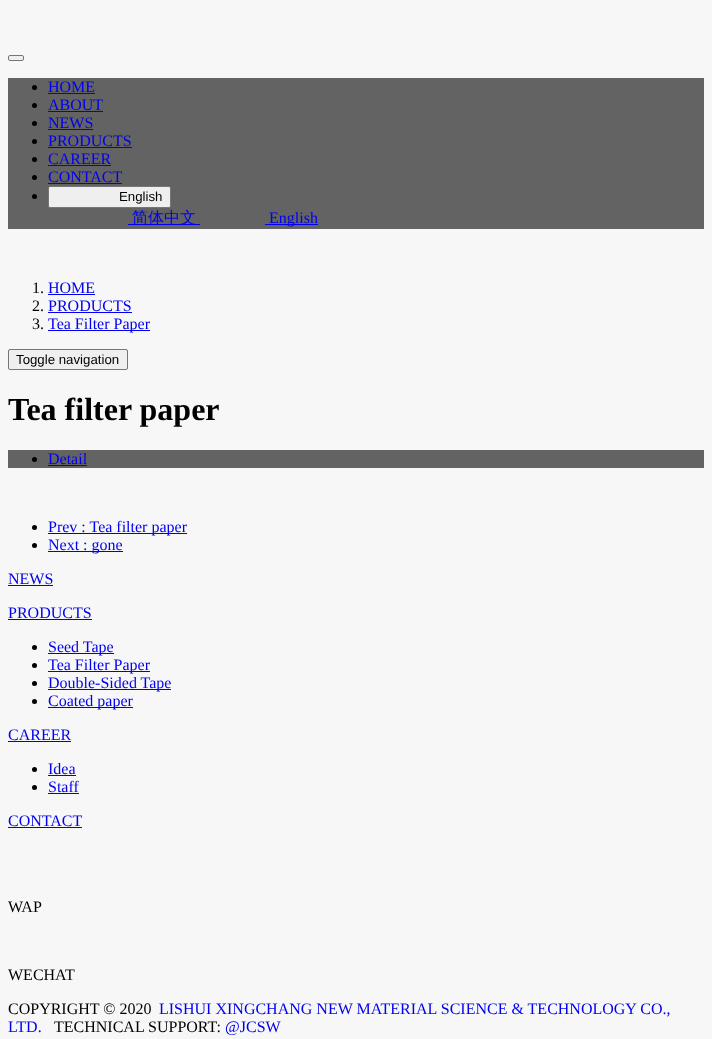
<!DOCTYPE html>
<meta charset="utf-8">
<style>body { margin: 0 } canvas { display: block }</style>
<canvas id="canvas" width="712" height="1039"></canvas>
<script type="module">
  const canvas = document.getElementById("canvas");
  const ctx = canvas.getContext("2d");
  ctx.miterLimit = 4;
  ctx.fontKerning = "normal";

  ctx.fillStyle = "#f7f7f7";
  ctx.fillRect(0, 0, 712, 1039);
  ctx.fillStyle = "#efefef";
  ctx.beginPath();
  ctx.roundRect(8.5, 55.5, 15, 5, 1.5);
  ctx.fill();
  ctx.strokeStyle = "#767676";
  ctx.stroke();
  ctx.fillStyle = "#636363";
  ctx.fillRect(8, 78, 696, 151);
  ctx.fillStyle = "#000000";
  ctx.beginPath();
  ctx.arc(34.5, 87.5, 2.5, 0, Math.PI * 2);
  ctx.fill();
  ctx.font = "16px Liberation Serif";
  ctx.fillStyle = "#0000ee";
  ctx.fillText("HOME", 48, 92);
  ctx.fillRect(48, 93, 47, 1);
  ctx.fillStyle = "#000000";
  ctx.beginPath();
  ctx.arc(34.5, 105.5, 2.5, 0, Math.PI * 2);
  ctx.fill();
  ctx.fillStyle = "#0000ee";
  ctx.fillText("ABOUT", 48, 110);
  ctx.fillRect(48, 111, 55, 1);
  ctx.fillStyle = "#000000";
  ctx.beginPath();
  ctx.arc(34.5, 123.5, 2.5, 0, Math.PI * 2);
  ctx.fill();
  ctx.fillStyle = "#0000ee";
  ctx.fillText("NEWS", 48, 128);
  ctx.fillRect(48, 129, 45, 1);
  ctx.fillStyle = "#000000";
  ctx.beginPath();
  ctx.arc(34.5, 141.5, 2.5, 0, Math.PI * 2);
  ctx.fill();
  ctx.fillStyle = "#0000ee";
  ctx.fillText("PRODUCTS", 48, 146);
  ctx.fillRect(48, 147, 84, 1);
  ctx.fillStyle = "#000000";
  ctx.beginPath();
  ctx.arc(34.5, 159.5, 2.5, 0, Math.PI * 2);
  ctx.fill();
  ctx.fillStyle = "#0000ee";
  ctx.fillText("CAREER", 48, 164);
  ctx.fillRect(48, 165, 63, 1);
  ctx.fillStyle = "#000000";
  ctx.beginPath();
  ctx.arc(34.5, 177.5, 2.5, 0, Math.PI * 2);
  ctx.fill();
  ctx.fillStyle = "#0000ee";
  ctx.fillText("CONTACT", 48, 182);
  ctx.fillRect(48, 183, 74, 1);
  ctx.fillStyle = "#000000";
  ctx.beginPath();
  ctx.arc(34.5, 196.5, 2.5, 0, Math.PI * 2);
  ctx.fill();
  ctx.fillStyle = "#efefef";
  ctx.beginPath();
  ctx.roundRect(48.5, 186.5, 122, 21, 1.5);
  ctx.fill();
  ctx.stroke();
  ctx.font = "13.25px Liberation Sans";
  ctx.fillStyle = "#000000";
  ctx.fillText("English", 119, 201);
  ctx.fillStyle = "#0000ee";
  ctx.fillRect(128, 224, 72, 1);
  ctx.font = "500 16px WenQuanYi Zen Hei";
  ctx.fillText("简体中文", 132, 223);
  ctx.fillRect(265, 224, 53, 1);
  ctx.font = "16px Liberation Serif";
  ctx.fillText("English", 269, 223);
  ctx.fillStyle = "#000000";
  ctx.fillText("1.", 32, 293);
  ctx.fillStyle = "#0000ee";
  ctx.fillText("HOME", 48, 293);
  ctx.fillRect(48, 294, 47, 1);
  ctx.fillStyle = "#000000";
  ctx.fillText("2.", 32, 311);
  ctx.fillStyle = "#0000ee";
  ctx.fillText("PRODUCTS", 48, 311);
  ctx.fillRect(48, 312, 84, 1);
  ctx.fillStyle = "#000000";
  ctx.fillText("3.", 32, 329);
  ctx.fillStyle = "#0000ee";
  ctx.fillRect(48, 330, 102, 1);
  ctx.fillText("Tea Filter Paper", 48, 329);
  ctx.fillStyle = "#efefef";
  ctx.beginPath();
  ctx.roundRect(8.5, 349.5, 119, 20, 1.5);
  ctx.fill();
  ctx.stroke();
  ctx.font = "13.25px Liberation Sans";
  ctx.fillStyle = "#000000";
  ctx.fillText("Toggle navigation", 16, 364);
  ctx.font = "bold 32px Liberation Serif";
  ctx.fillText("Tea filter paper", 8, 420);
  ctx.fillStyle = "#636363";
  ctx.fillRect(8, 450, 696, 18);
  ctx.fillStyle = "#000000";
  ctx.beginPath();
  ctx.arc(34.5, 459.5, 2.5, 0, Math.PI * 2);
  ctx.fill();
  ctx.font = "16px Liberation Serif";
  ctx.fillStyle = "#0000ee";
  ctx.fillText("Detail", 48, 464);
  ctx.fillRect(48, 465, 39, 1);
  ctx.fillStyle = "#000000";
  ctx.beginPath();
  ctx.arc(34.5, 527.5, 2.5, 0, Math.PI * 2);
  ctx.fill();
  ctx.fillStyle = "#0000ee";
  ctx.fillRect(48, 533, 139, 1);
  ctx.fillText("Prev : Tea filter paper", 48, 532);
  ctx.fillStyle = "#000000";
  ctx.beginPath();
  ctx.arc(34.5, 545.5, 2.5, 0, Math.PI * 2);
  ctx.fill();
  ctx.fillStyle = "#0000ee";
  ctx.fillRect(48, 551, 75, 1);
  ctx.fillText("Next : gone", 48, 550);
  ctx.fillText("NEWS", 8, 584);
  ctx.fillRect(8, 585, 45, 1);
  ctx.fillText("PRODUCTS", 8, 618);
  ctx.fillRect(8, 619, 84, 1);
  ctx.fillStyle = "#000000";
  ctx.beginPath();
  ctx.arc(34.5, 647.5, 2.5, 0, Math.PI * 2);
  ctx.fill();
  ctx.fillStyle = "#0000ee";
  ctx.fillRect(48, 653, 66, 1);
  ctx.fillText("Seed Tape", 48, 652);
  ctx.fillStyle = "#000000";
  ctx.beginPath();
  ctx.arc(34.5, 665.5, 2.5, 0, Math.PI * 2);
  ctx.fill();
  ctx.fillStyle = "#0000ee";
  ctx.fillRect(48, 671, 102, 1);
  ctx.fillText("Tea Filter Paper", 48, 670);
  ctx.fillStyle = "#000000";
  ctx.beginPath();
  ctx.arc(34.5, 683.5, 2.5, 0, Math.PI * 2);
  ctx.fill();
  ctx.fillStyle = "#0000ee";
  ctx.fillRect(48, 689, 123, 1);
  ctx.fillText("Double-Sided Tape", 48, 688);
  ctx.fillStyle = "#000000";
  ctx.beginPath();
  ctx.arc(34.5, 701.5, 2.5, 0, Math.PI * 2);
  ctx.fill();
  ctx.fillStyle = "#0000ee";
  ctx.fillRect(48, 707, 85, 1);
  ctx.fillText("Coated paper", 48, 706);
  ctx.fillText("CAREER", 8, 740);
  ctx.fillRect(8, 741, 63, 1);
  ctx.fillStyle = "#000000";
  ctx.beginPath();
  ctx.arc(34.5, 769.5, 2.5, 0, Math.PI * 2);
  ctx.fill();
  ctx.fillStyle = "#0000ee";
  ctx.fillText("Idea", 48, 774);
  ctx.fillRect(48, 775, 28, 1);
  ctx.fillStyle = "#000000";
  ctx.beginPath();
  ctx.arc(34.5, 787.5, 2.5, 0, Math.PI * 2);
  ctx.fill();
  ctx.fillStyle = "#0000ee";
  ctx.fillText("Staff", 48, 792);
  ctx.fillRect(48, 793, 31, 1);
  ctx.fillText("CONTACT", 8, 826);
  ctx.fillRect(8, 827, 74, 1);
  ctx.fillStyle = "#000000";
  ctx.fillText("WAP", 8, 912);
  ctx.fillText("WECHAT", 8, 980);
  ctx.fillText("COPYRIGHT © 2020", 8, 1014);
  ctx.fillStyle = "#0000ee";
  ctx.fillText("LISHUI XINGCHANG NEW MATERIAL SCIENCE & TECHNOLOGY CO.,", 159, 1014);
  ctx.fillText("LTD.", 8, 1032);
  ctx.fillStyle = "#000000";
  ctx.fillText("TECHNICAL SUPPORT:", 54, 1032);
  ctx.fillStyle = "#0000ee";
  ctx.fillText("@JCSW", 225, 1032);
</script>
